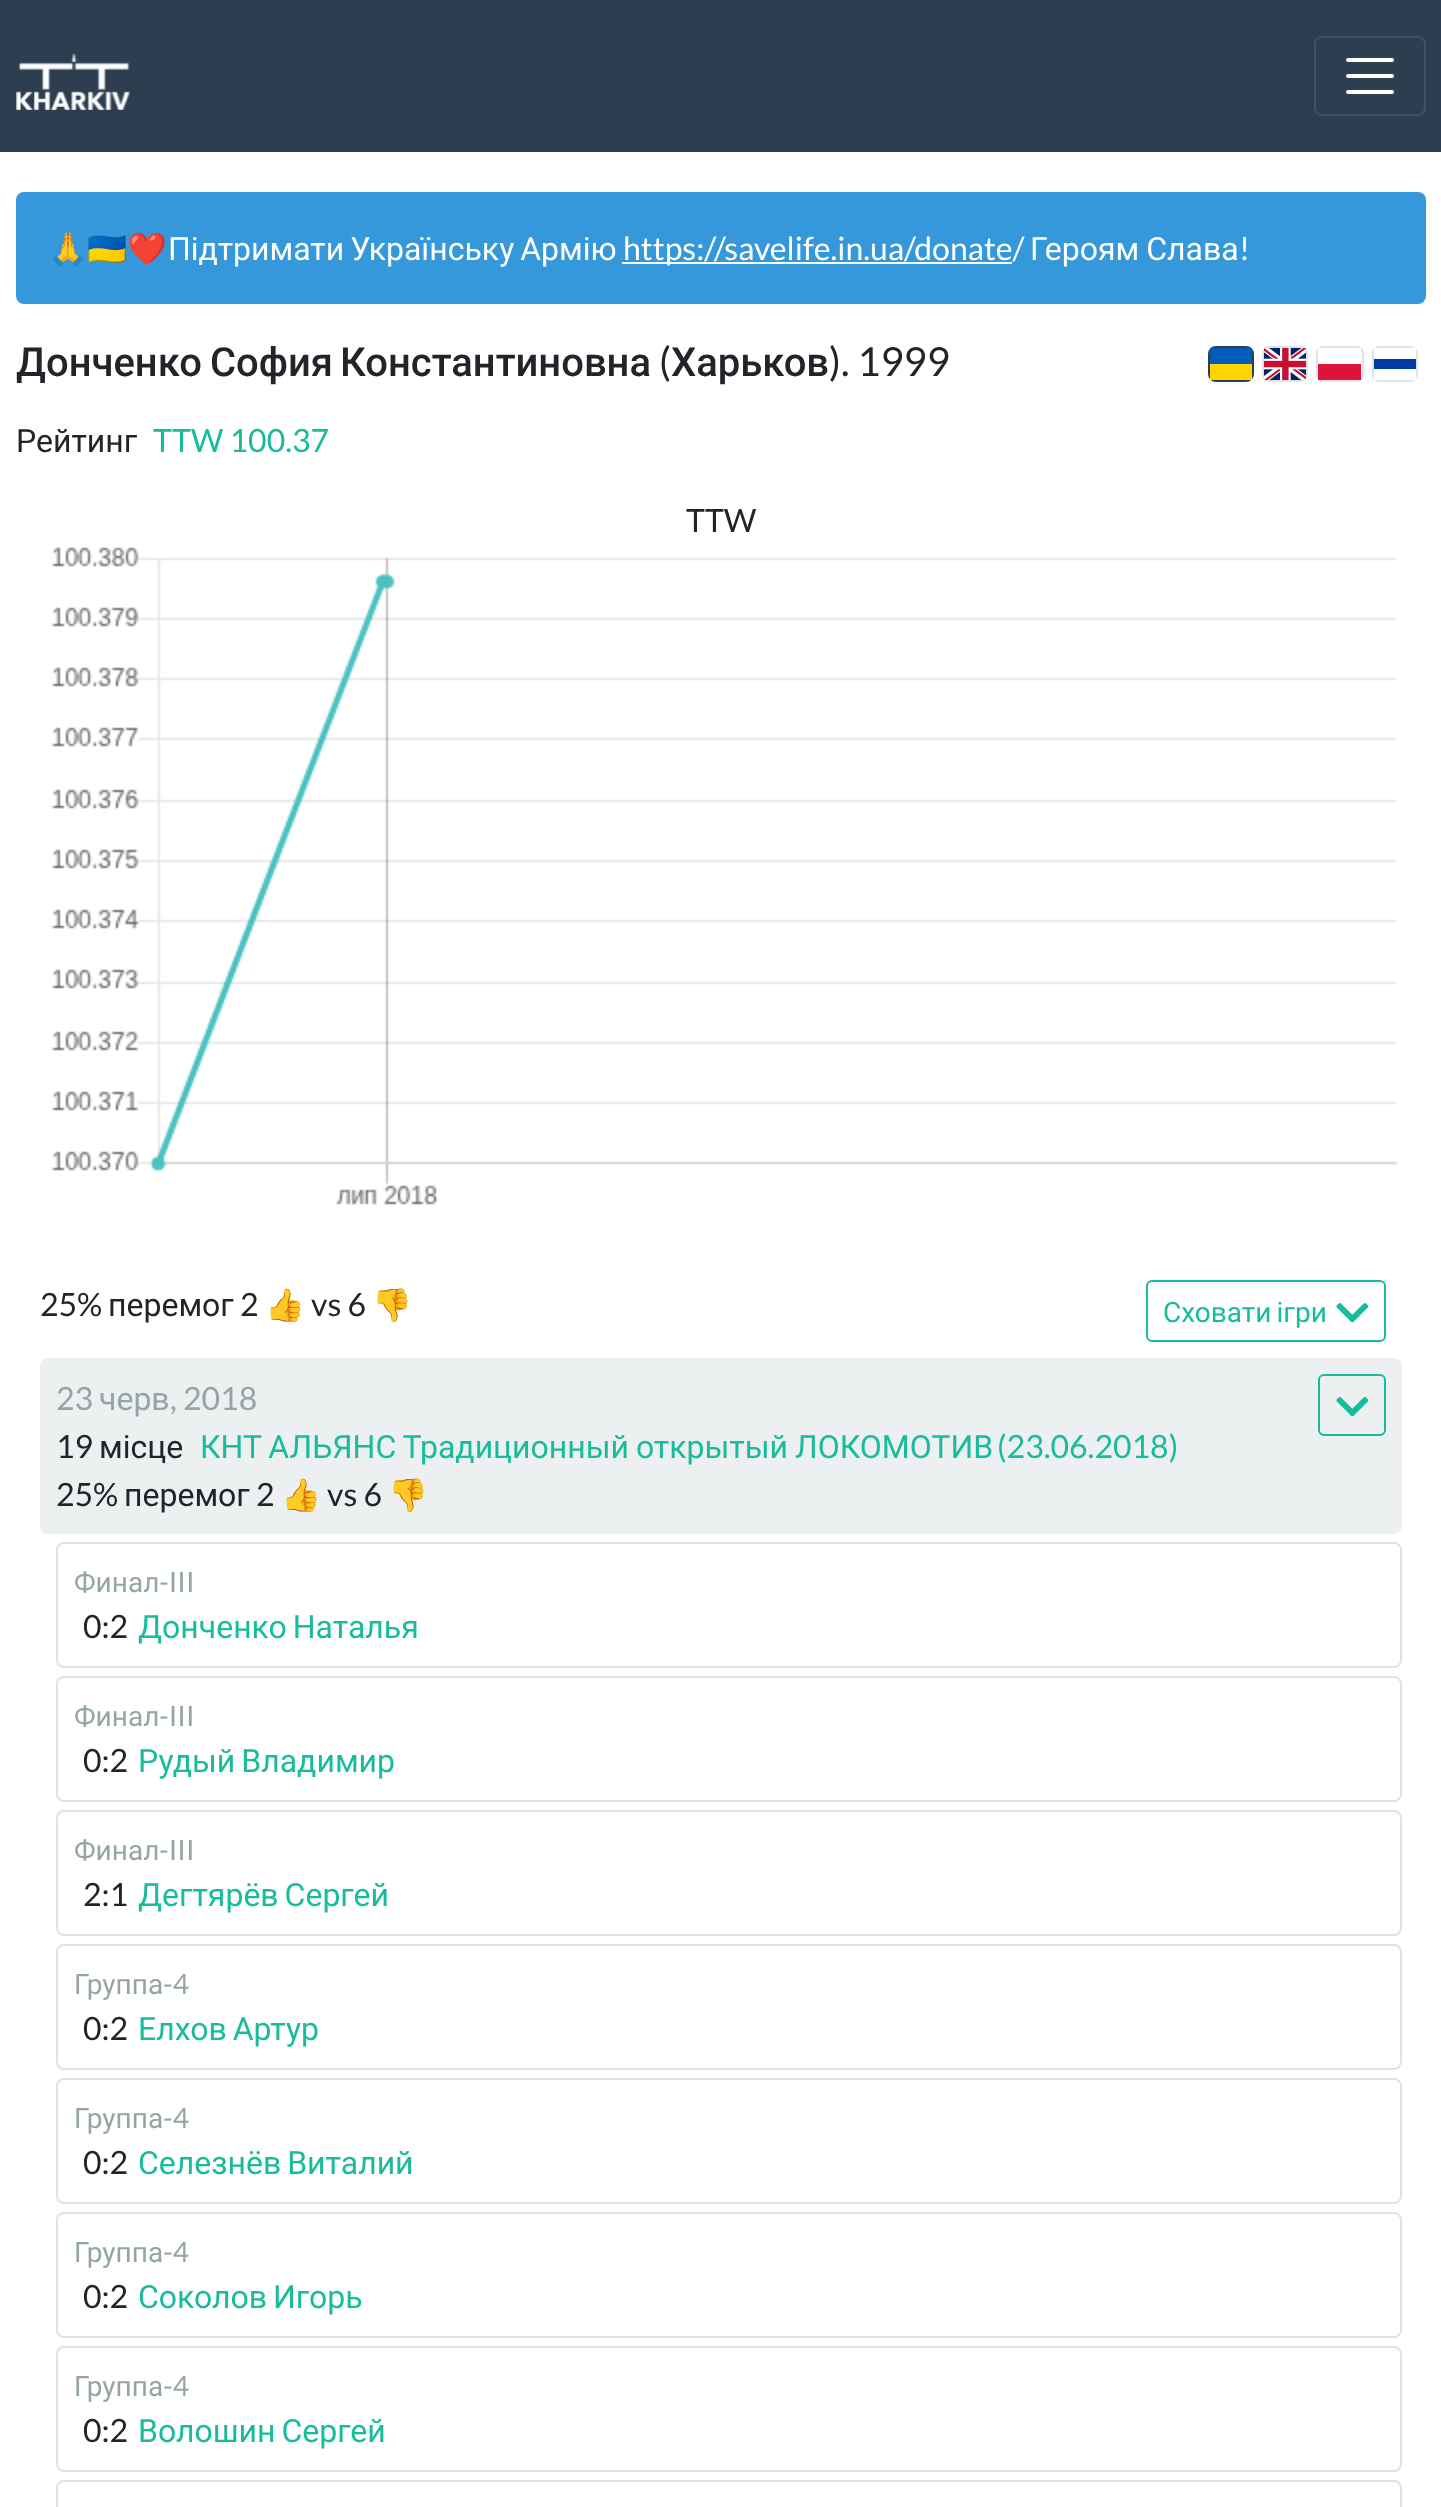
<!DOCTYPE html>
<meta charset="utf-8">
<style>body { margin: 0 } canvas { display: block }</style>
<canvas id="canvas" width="1441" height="2507"></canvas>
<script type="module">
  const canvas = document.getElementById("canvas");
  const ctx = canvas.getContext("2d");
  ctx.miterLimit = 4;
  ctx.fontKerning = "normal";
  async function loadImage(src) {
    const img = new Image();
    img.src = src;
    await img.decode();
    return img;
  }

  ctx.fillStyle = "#ffffff";
  ctx.fillRect(0, 0, 1441, 2507);
  ctx.fillStyle = "#2c3e50";
  ctx.fillRect(0, 0, 1441, 152);
  ctx.drawImage(await loadImage("img1.png"), 16, 53, 114, 57);
  ctx.beginPath();
  ctx.roundRect(1315, 37, 110, 78, 7);
  ctx.strokeStyle = "#415162";
  ctx.lineWidth = 2;
  ctx.stroke();
  ctx.beginPath();
  ctx.moveTo(1348, 60);
  ctx.lineTo(1392, 60);
  ctx.moveTo(1348, 76);
  ctx.lineTo(1392, 76);
  ctx.moveTo(1348, 92);
  ctx.lineTo(1392, 92);
  ctx.strokeStyle = "#ffffff";
  ctx.lineWidth = 4;
  ctx.lineCap = "round";
  ctx.stroke();
  ctx.fillStyle = "#3498db";
  ctx.beginPath();
  ctx.roundRect(16, 192, 1410, 112, 8);
  ctx.fill();
  ctx.font = "32px Noto Color Emoji";
  ctx.fillStyle = "#ffffff";
  ctx.fillText("🙏🇺🇦❤️", 48, 260);
  ctx.wordSpacing = "-2px";
  ctx.font = "32px Roboto";
  ctx.fillText("Підтримати Українську Армію", 168, 260);
  ctx.fillRect(622, 262, 390, 2);
  ctx.wordSpacing = "0px";
  ctx.font = "32px Lato";
  ctx.fillText("https://savelife.in.ua/donate/", 623, 260);
  ctx.wordSpacing = "-1px";
  ctx.font = "32px Roboto";
  ctx.fillText("Героям Слава", 1030, 260);
  ctx.wordSpacing = "0px";
  ctx.font = "32px Lato";
  ctx.fillText("!", 1239, 260);
  ctx.font = "500 40px Roboto";
  ctx.fillStyle = "#212529";
  ctx.fillText("Донченко", 16, 376);
  ctx.fillText("София", 210, 376);
  ctx.fillText("Константиновна", 340, 376);
  ctx.font = "40px Lato";
  ctx.fillText("(", 659, 376);
  ctx.font = "500 40px Roboto";
  ctx.fillText("Харьков", 671, 376);
  ctx.font = "40px Lato";
  ctx.fillText("). 1999", 829, 376);
  ctx.font = "32px Roboto";
  ctx.fillText("Рейтинг", 16, 452);
  ctx.font = "32px Lato";
  ctx.fillStyle = "#18bc9c";
  ctx.fillText("TTW 100.37", 153, 452);
  ctx.fillStyle = "#212529";
  ctx.fillText("TTW", 686, 532);
  ctx.drawImage(await loadImage("img2.png"), 51, 547, 1347, 658);
  ctx.fillText("25%", 40, 1316);
  ctx.font = "32px Roboto";
  ctx.fillText("перемог", 108, 1316);
  ctx.font = "32px Lato";
  ctx.fillText("2", 240, 1316);
  ctx.font = "32px Noto Color Emoji";
  ctx.fillText("👍", 265, 1316);
  ctx.font = "32px Lato";
  ctx.fillText("vs 6", 311, 1316);
  ctx.font = "32px Noto Color Emoji";
  ctx.fillText("👎", 372, 1316);
  ctx.beginPath();
  ctx.roundRect(1147, 1281, 238, 60, 5);
  ctx.strokeStyle = "#18bc9c";
  ctx.lineWidth = 2;
  ctx.stroke();
  ctx.wordSpacing = "-2px";
  ctx.font = "28px Roboto";
  ctx.fillStyle = "#18bc9c";
  ctx.fillText("Сховати ігри", 1163, 1322);
  ctx.drawImage(await loadImage("img3.png"), 1336, 1303, 33, 20);
  ctx.fillStyle = "#ecf0f1";
  ctx.beginPath();
  ctx.roundRect(40, 1358, 1362, 176, 8);
  ctx.fill();
  ctx.wordSpacing = "0px";
  ctx.font = "32px Lato";
  ctx.fillStyle = "#95a5a6";
  ctx.fillText("23", 56, 1410);
  ctx.font = "32px Roboto";
  ctx.fillText("черв", 99, 1410);
  ctx.font = "32px Lato";
  ctx.fillText(", 2018", 170, 1410);
  ctx.fillStyle = "#212529";
  ctx.fillText("19", 56, 1458);
  ctx.font = "32px Roboto";
  ctx.fillText("місце", 99, 1458);
  ctx.wordSpacing = "-1px";
  ctx.fillStyle = "#18bc9c";
  ctx.fillText("КНТ АЛЬЯНС Традиционный открытый ЛОКОМОТИВ", 200, 1458);
  ctx.wordSpacing = "0px";
  ctx.font = "32px Lato";
  ctx.fillText("(23.06.2018)", 997, 1458);
  ctx.fillStyle = "#212529";
  ctx.fillText("25%", 56, 1506);
  ctx.font = "32px Roboto";
  ctx.fillText("перемог", 124, 1506);
  ctx.font = "32px Lato";
  ctx.fillText("2", 256, 1506);
  ctx.font = "32px Noto Color Emoji";
  ctx.fillText("👍", 281, 1506);
  ctx.font = "32px Lato";
  ctx.fillText("vs 6", 327, 1506);
  ctx.font = "32px Noto Color Emoji";
  ctx.fillText("👎", 388, 1506);
  ctx.beginPath();
  ctx.roundRect(1319, 1375, 66, 60, 5);
  ctx.stroke();
  ctx.drawImage(await loadImage("img4.png"), 1336, 1397, 33, 20);
  ctx.beginPath();
  ctx.roundRect(57, 1543, 1344, 124, 7);
  ctx.strokeStyle = "#dee2e6";
  ctx.stroke();
  ctx.font = "28px Roboto";
  ctx.fillStyle = "#95a5a6";
  ctx.fillText("Финал", 74, 1592);
  ctx.font = "28px Lato";
  ctx.fillText("-III", 159, 1592);
  ctx.font = "32px Lato";
  ctx.fillStyle = "#212529";
  ctx.fillText("0:2", 83, 1638);
  ctx.wordSpacing = "-2px";
  ctx.font = "32px Roboto";
  ctx.fillStyle = "#18bc9c";
  ctx.fillText("Донченко Наталья", 138, 1638);
  ctx.beginPath();
  ctx.roundRect(57, 1677, 1344, 124, 7);
  ctx.stroke();
  ctx.wordSpacing = "0px";
  ctx.font = "28px Roboto";
  ctx.fillStyle = "#95a5a6";
  ctx.fillText("Финал", 74, 1726);
  ctx.font = "28px Lato";
  ctx.fillText("-III", 159, 1726);
  ctx.font = "32px Lato";
  ctx.fillStyle = "#212529";
  ctx.fillText("0:2", 83, 1772);
  ctx.wordSpacing = "-2px";
  ctx.font = "32px Roboto";
  ctx.fillStyle = "#18bc9c";
  ctx.fillText("Рудый Владимир", 138, 1772);
  ctx.beginPath();
  ctx.roundRect(57, 1811, 1344, 124, 7);
  ctx.stroke();
  ctx.wordSpacing = "0px";
  ctx.font = "28px Roboto";
  ctx.fillStyle = "#95a5a6";
  ctx.fillText("Финал", 74, 1860);
  ctx.font = "28px Lato";
  ctx.fillText("-III", 159, 1860);
  ctx.font = "32px Lato";
  ctx.fillStyle = "#212529";
  ctx.fillText("2:1", 83, 1906);
  ctx.wordSpacing = "-2px";
  ctx.font = "32px Roboto";
  ctx.fillStyle = "#18bc9c";
  ctx.fillText("Дегтярёв Сергей", 138, 1906);
  ctx.beginPath();
  ctx.roundRect(57, 1945, 1344, 124, 7);
  ctx.stroke();
  ctx.wordSpacing = "0px";
  ctx.font = "28px Roboto";
  ctx.fillStyle = "#95a5a6";
  ctx.fillText("Группа", 74, 1994);
  ctx.font = "28px Lato";
  ctx.fillText("-4", 163, 1994);
  ctx.font = "32px Lato";
  ctx.fillStyle = "#212529";
  ctx.fillText("0:2", 83, 2040);
  ctx.wordSpacing = "-2px";
  ctx.font = "32px Roboto";
  ctx.fillStyle = "#18bc9c";
  ctx.fillText("Елхов Артур", 138, 2040);
  ctx.beginPath();
  ctx.roundRect(57, 2079, 1344, 124, 7);
  ctx.stroke();
  ctx.wordSpacing = "0px";
  ctx.font = "28px Roboto";
  ctx.fillStyle = "#95a5a6";
  ctx.fillText("Группа", 74, 2128);
  ctx.font = "28px Lato";
  ctx.fillText("-4", 163, 2128);
  ctx.font = "32px Lato";
  ctx.fillStyle = "#212529";
  ctx.fillText("0:2", 83, 2174);
  ctx.wordSpacing = "-2px";
  ctx.font = "32px Roboto";
  ctx.fillStyle = "#18bc9c";
  ctx.fillText("Селезнёв Виталий", 138, 2174);
  ctx.beginPath();
  ctx.roundRect(57, 2213, 1344, 124, 7);
  ctx.stroke();
  ctx.wordSpacing = "0px";
  ctx.font = "28px Roboto";
  ctx.fillStyle = "#95a5a6";
  ctx.fillText("Группа", 74, 2262);
  ctx.font = "28px Lato";
  ctx.fillText("-4", 163, 2262);
  ctx.font = "32px Lato";
  ctx.fillStyle = "#212529";
  ctx.fillText("0:2", 83, 2308);
  ctx.wordSpacing = "-2px";
  ctx.font = "32px Roboto";
  ctx.fillStyle = "#18bc9c";
  ctx.fillText("Соколов Игорь", 138, 2308);
  ctx.beginPath();
  ctx.roundRect(57, 2347, 1344, 124, 7);
  ctx.stroke();
  ctx.wordSpacing = "0px";
  ctx.font = "28px Roboto";
  ctx.fillStyle = "#95a5a6";
  ctx.fillText("Группа", 74, 2396);
  ctx.font = "28px Lato";
  ctx.fillText("-4", 163, 2396);
  ctx.font = "32px Lato";
  ctx.fillStyle = "#212529";
  ctx.fillText("0:2", 83, 2442);
  ctx.wordSpacing = "-2px";
  ctx.font = "32px Roboto";
  ctx.fillStyle = "#18bc9c";
  ctx.fillText("Волошин Сергей", 138, 2442);
  ctx.beginPath();
  ctx.roundRect(57, 2481, 1344, 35, 7);
  ctx.stroke();
  ctx.beginPath();
  ctx.roundRect(1209, 347, 44, 34, 7);
  ctx.strokeStyle = "#2c3e50";
  ctx.stroke();
  ctx.fillStyle = "#ffd500";
  ctx.fillRect(1210, 364, 42, 16);
  ctx.fillStyle = "#005bbb";
  ctx.fillRect(1210, 348, 42, 16);
  ctx.beginPath();
  ctx.roundRect(1263, 347, 44, 34, 7);
  ctx.strokeStyle = "#dee2e6";
  ctx.stroke();
  ctx.drawImage(await loadImage("img5.png"), 1264, 348, 42, 32);
  ctx.beginPath();
  ctx.roundRect(1317, 347, 46, 34, 7);
  ctx.stroke();
  ctx.fillStyle = "#ffffff";
  ctx.fillRect(1318, 348, 43, 5);
  ctx.fillStyle = "#dc143c";
  ctx.fillRect(1318, 364, 43, 16);
  ctx.beginPath();
  ctx.roundRect(1373, 347, 44, 34, 7);
  ctx.stroke();
  ctx.fillStyle = "#ffffff";
  ctx.fillRect(1374, 348, 42, 5);
  ctx.fillStyle = "#0039a6";
  ctx.fillRect(1374, 359, 42, 10);
  ctx.fillStyle = "#ffffff";
  ctx.fillRect(1374, 375, 42, 5);
</script>
